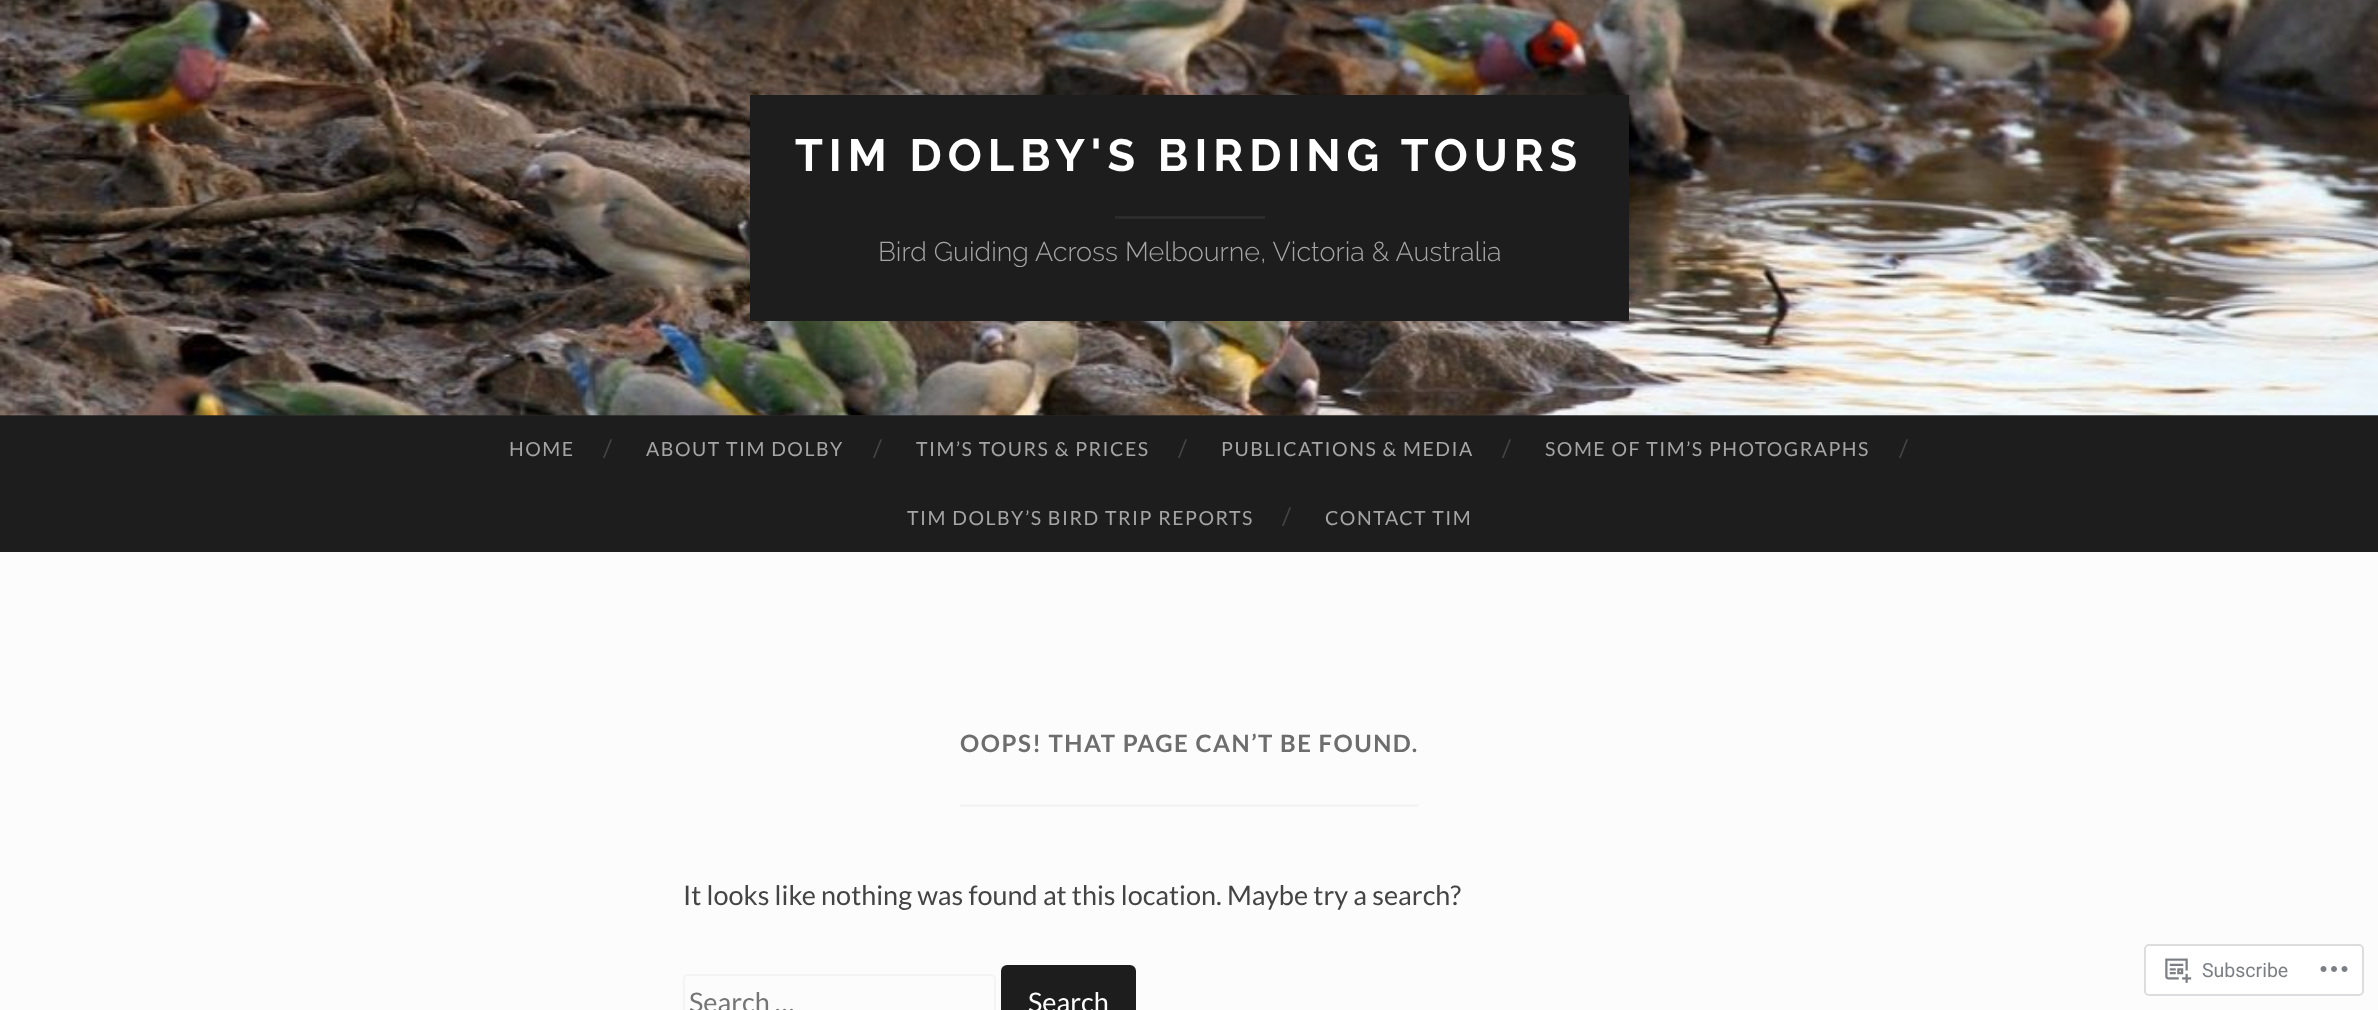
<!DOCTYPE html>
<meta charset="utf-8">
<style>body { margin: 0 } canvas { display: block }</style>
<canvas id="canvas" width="2378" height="1010"></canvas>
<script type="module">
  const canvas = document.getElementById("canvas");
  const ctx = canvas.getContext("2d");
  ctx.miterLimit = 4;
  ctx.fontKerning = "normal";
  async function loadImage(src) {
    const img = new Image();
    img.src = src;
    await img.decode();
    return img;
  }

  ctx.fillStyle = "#fcfcfc";
  ctx.fillRect(0, 0, 2378, 1010);
  ctx.fillStyle = "#262626";
  ctx.fillRect(0, 415, 2378, 1);
  ctx.drawImage(await loadImage("img1.png"), 0, 0, 2378, 416);
  ctx.fillStyle = "#1d1d1d";
  ctx.fillRect(750, 95, 879, 226);
  ctx.letterSpacing = "6px";
  ctx.font = "bold 45px Raleway";
  ctx.fillStyle = "#ffffff";
  ctx.fillText("TIM DOLBY'S BIRDING TOURS", 795, 171);
  ctx.fillStyle = "#2b2b2b";
  ctx.fillRect(1115, 216, 150, 3);
  ctx.letterSpacing = "0px";
  ctx.font = "300 27px Raleway";
  ctx.fillStyle = "#a5a5a5";
  ctx.fillText("Bird Guiding Across Melbourne, Victoria & Australia", 878, 261);
  ctx.fillStyle = "#1d1d1d";
  ctx.fillRect(0, 416, 2378, 136);
  ctx.letterSpacing = "1.5px";
  ctx.font = "19.5px Lato";
  ctx.fillStyle = "#a5a5a5";
  ctx.fillText("HOME", 509, 456);
  ctx.letterSpacing = "0px";
  ctx.font = "24px Lato";
  ctx.fillStyle = "#444444";
  ctx.fillText("/", 603, 457);
  ctx.letterSpacing = "1.5px";
  ctx.font = "19.5px Lato";
  ctx.fillStyle = "#a5a5a5";
  ctx.fillText("ABOUT TIM DOLBY", 646, 456);
  ctx.letterSpacing = "0px";
  ctx.font = "24px Lato";
  ctx.fillStyle = "#444444";
  ctx.fillText("/", 873, 457);
  ctx.letterSpacing = "1.5px";
  ctx.font = "19.5px Lato";
  ctx.fillStyle = "#a5a5a5";
  ctx.fillText("TIM’S TOURS & PRICES", 916, 456);
  ctx.letterSpacing = "0px";
  ctx.font = "24px Lato";
  ctx.fillStyle = "#444444";
  ctx.fillText("/", 1178, 457);
  ctx.letterSpacing = "1.5px";
  ctx.font = "19.5px Lato";
  ctx.fillStyle = "#a5a5a5";
  ctx.fillText("PUBLICATIONS & MEDIA", 1221, 456);
  ctx.letterSpacing = "0px";
  ctx.font = "24px Lato";
  ctx.fillStyle = "#444444";
  ctx.fillText("/", 1502, 457);
  ctx.letterSpacing = "1.5px";
  ctx.font = "19.5px Lato";
  ctx.fillStyle = "#a5a5a5";
  ctx.fillText("SOME OF TIM’S PHOTOGRAPHS", 1545, 456);
  ctx.letterSpacing = "0px";
  ctx.font = "24px Lato";
  ctx.fillStyle = "#444444";
  ctx.fillText("/", 1899, 457);
  ctx.letterSpacing = "1.5px";
  ctx.font = "19.5px Lato";
  ctx.fillStyle = "#a5a5a5";
  ctx.fillText("TIM DOLBY’S BIRD TRIP REPORTS", 907, 525);
  ctx.letterSpacing = "0px";
  ctx.font = "24px Lato";
  ctx.fillStyle = "#444444";
  ctx.fillText("/", 1282, 525);
  ctx.letterSpacing = "1.5px";
  ctx.font = "19.5px Lato";
  ctx.fillStyle = "#a5a5a5";
  ctx.fillText("CONTACT TIM", 1325, 525);
  ctx.fillStyle = "#f5f5f5";
  ctx.fillRect(960, 804, 459, 3);
  ctx.font = "bold 24px Lato";
  ctx.fillStyle = "#6d6d6d";
  ctx.fillText("OOPS! THAT PAGE CAN’T BE FOUND.", 960, 752);
  ctx.letterSpacing = "0px";
  ctx.font = "27px Lato";
  ctx.fillStyle = "#444444";
  ctx.fillText("It looks like nothing was found at this location. Maybe try a search?", 683, 905);
  ctx.beginPath();
  ctx.roundRect(684, 975, 311, 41, 4);
  ctx.strokeStyle = "#f4f4f4";
  ctx.lineWidth = 2;
  ctx.stroke();
  ctx.fillStyle = "#757575";
  ctx.fillText("Search …", 689, 1012);
  ctx.fillStyle = "#1d1d1d";
  ctx.beginPath();
  ctx.roundRect(1001, 965, 135, 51, 6);
  ctx.fill();
  ctx.fillStyle = "#ffffff";
  ctx.fillText("Search", 1028, 1012);
  ctx.beginPath();
  ctx.roundRect(2145, 945, 218, 50, 4);
  ctx.fill();
  ctx.strokeStyle = "#dddddf";
  ctx.stroke();
  ctx.drawImage(await loadImage("img2.png"), 2165, 958, 27, 25);
  ctx.font = "19.5px Roboto";
  ctx.fillStyle = "#7b7f84";
  ctx.fillText("Subscribe", 2202, 977);
  ctx.drawImage(await loadImage("img3.png"), 2320, 966, 28, 6);
</script>
